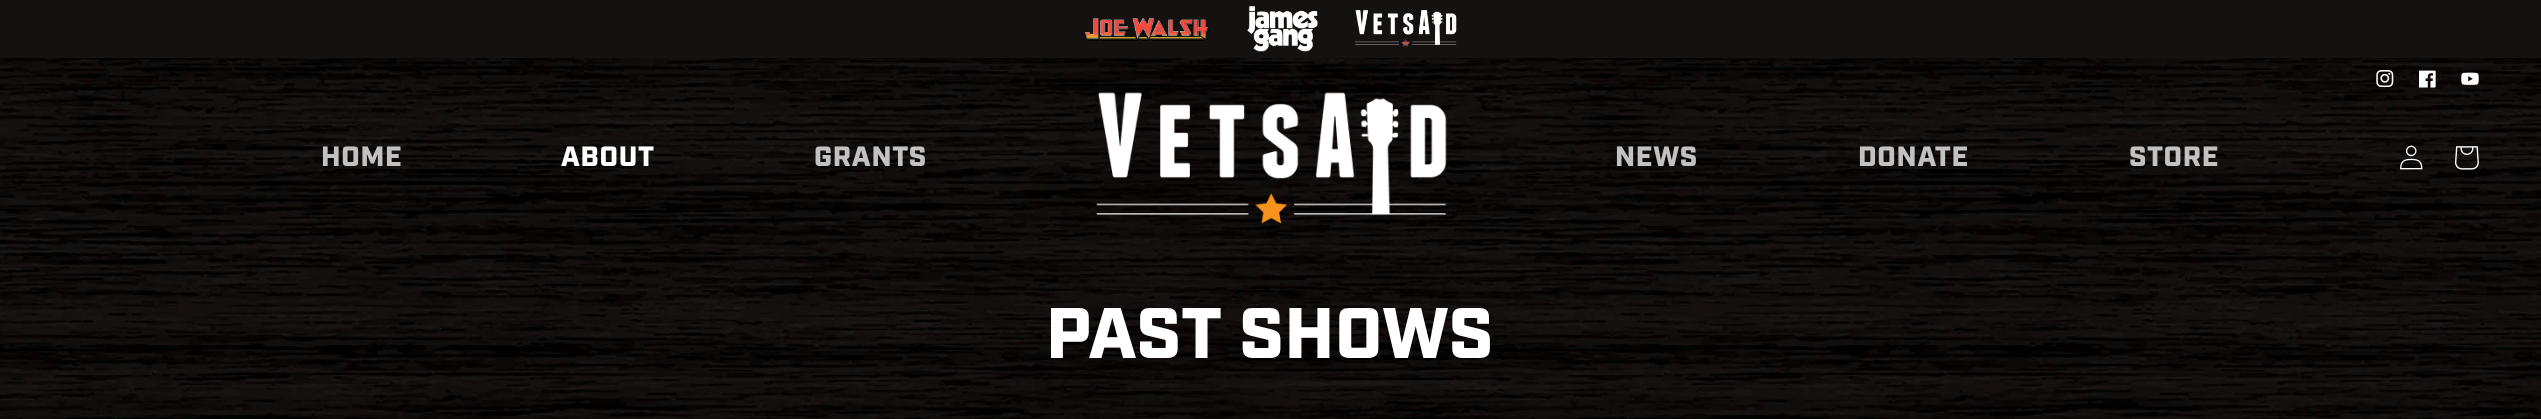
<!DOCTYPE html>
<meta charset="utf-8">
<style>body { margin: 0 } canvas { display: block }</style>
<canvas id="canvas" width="2541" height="419"></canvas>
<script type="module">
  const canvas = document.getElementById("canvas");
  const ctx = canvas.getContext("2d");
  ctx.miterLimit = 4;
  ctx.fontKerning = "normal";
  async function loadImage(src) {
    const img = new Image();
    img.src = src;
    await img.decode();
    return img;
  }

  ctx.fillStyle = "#ffffff";
  ctx.fillRect(0, 0, 2541, 419);
  ctx.drawImage(await loadImage("img1.png"), 0, 58, 2541, 361);
  ctx.fillStyle = "#15110f";
  ctx.fillRect(0, 0, 2541, 58);
  ctx.drawImage(await loadImage("img2.png"), 1085, 17, 125, 24);
  ctx.drawImage(await loadImage("img3.png"), 1247, 6, 71, 46);
  ctx.drawImage(await loadImage("img4.png"), 1355, 10, 102, 37);
  ctx.drawImage(await loadImage("img5.png"), 2376, 70, 18, 18);
  ctx.drawImage(await loadImage("img6.png"), 2419, 70, 17, 18);
  ctx.drawImage(await loadImage("img7.png"), 2461, 72, 18, 13);
  ctx.letterSpacing = "0.75px";
  ctx.font = "900 28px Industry";
  ctx.fillStyle = "#c3c2c2";
  ctx.fillText("HOME", 321, 166);
  ctx.fillStyle = "#ffffff";
  ctx.fillText("ABOUT", 561, 166);
  ctx.fillStyle = "#c3c2c2";
  ctx.fillText("GRANTS", 814, 166);
  ctx.drawImage(await loadImage("img8.png"), 1096, 92, 351, 132);
  ctx.fillText("NEWS", 1615, 166);
  ctx.fillText("DONATE", 1858, 166);
  ctx.fillText("STORE", 2129, 166);
  ctx.drawImage(await loadImage("img9.png"), 2400, 145, 23, 25);
  ctx.drawImage(await loadImage("img10.png"), 2455, 146, 24, 24);
  ctx.font = "900 71.5px Industry";
  ctx.fillStyle = "#ffffff";
  ctx.fillText("PAST SHOWS", 1046, 358);
</script>
